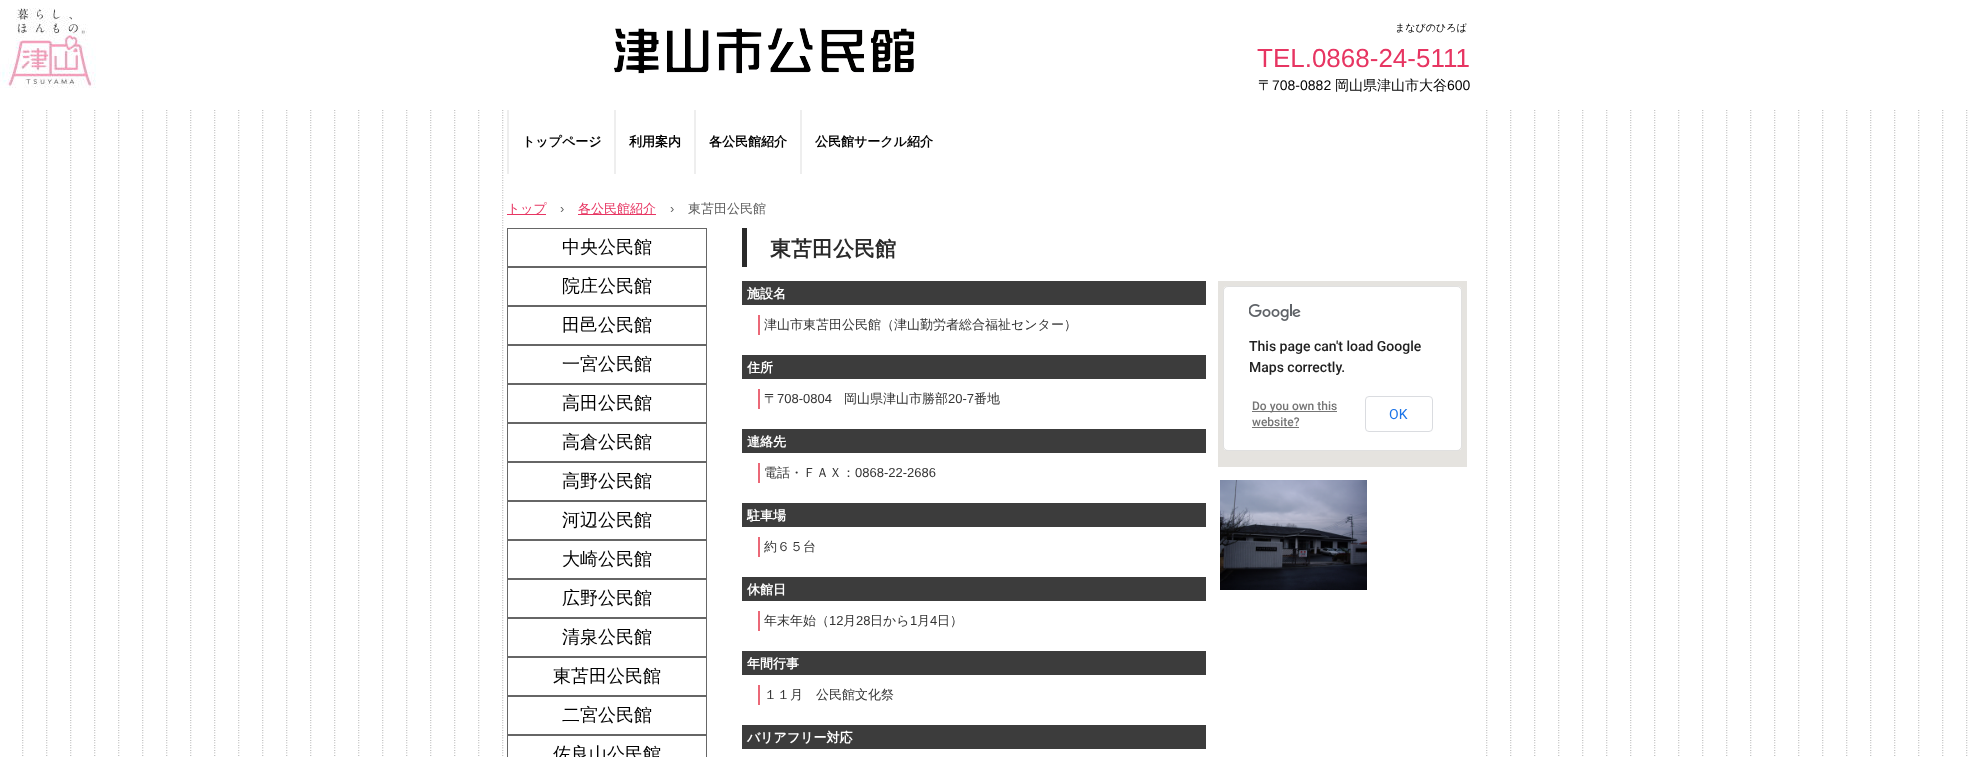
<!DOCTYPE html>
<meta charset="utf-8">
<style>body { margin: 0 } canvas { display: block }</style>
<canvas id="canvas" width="1973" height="757"></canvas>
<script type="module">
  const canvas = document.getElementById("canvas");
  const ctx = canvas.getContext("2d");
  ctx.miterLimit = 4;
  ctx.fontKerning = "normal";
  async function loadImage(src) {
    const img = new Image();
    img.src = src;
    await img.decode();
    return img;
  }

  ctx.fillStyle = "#ffffff";
  ctx.fillRect(0, 0, 1973, 757);
  ctx.drawImage(await loadImage("img1.png"), 22, 110, 1946, 646);
  ctx.drawImage(await loadImage("img2.png"), 0, 8, 96, 80);
  ctx.drawImage(await loadImage("img3.png"), 614, 28, 301, 46);
  ctx.font = "500 10px WenQuanYi Zen Hei";
  ctx.fillStyle = "#000000";
  ctx.fillText("まなびのひろば", 1395, 31);
  ctx.font = "26px Liberation Sans";
  ctx.fillStyle = "#e73562";
  ctx.fillText("TEL.0868-24-5111", 1257, 67);
  ctx.font = "500 14px WenQuanYi Zen Hei";
  ctx.fillStyle = "#000000";
  ctx.fillText("〒", 1258, 90);
  ctx.font = "14px Liberation Sans";
  ctx.fillText("708-0882", 1272, 90);
  ctx.font = "500 14px WenQuanYi Zen Hei";
  ctx.fillText("岡山県津山市大谷", 1335, 90);
  ctx.font = "14px Liberation Sans";
  ctx.fillText("600", 1447, 90);
  ctx.fillStyle = "#ffffff";
  ctx.fillRect(526, 110, 938, 646);
  ctx.fillStyle = "#eeeeee";
  ctx.fillRect(507, 110, 2, 64);
  ctx.font = "bold 13px WenQuanYi Zen Hei";
  ctx.fillStyle = "#000000";
  ctx.fillText("トップページ", 522, 146);
  ctx.fillStyle = "#eeeeee";
  ctx.fillRect(614, 110, 2, 64);
  ctx.fillStyle = "#000000";
  ctx.fillText("利用案内", 629, 146);
  ctx.fillStyle = "#eeeeee";
  ctx.fillRect(694, 110, 2, 64);
  ctx.fillStyle = "#000000";
  ctx.fillText("各公民館紹介", 709, 146);
  ctx.fillStyle = "#eeeeee";
  ctx.fillRect(800, 110, 2, 64);
  ctx.fillStyle = "#000000";
  ctx.fillText("公民館サークル紹介", 815, 146);
  ctx.fillStyle = "#e73562";
  ctx.fillRect(507, 214, 39, 1);
  ctx.font = "500 13px WenQuanYi Zen Hei";
  ctx.fillText("トップ", 507, 213);
  ctx.font = "13px Liberation Sans";
  ctx.fillStyle = "#5c5c5c";
  ctx.fillText("›", 560, 213);
  ctx.fillStyle = "#e73562";
  ctx.fillRect(578, 214, 78, 1);
  ctx.font = "500 13px WenQuanYi Zen Hei";
  ctx.fillText("各公民館紹介", 578, 213);
  ctx.font = "13px Liberation Sans";
  ctx.fillStyle = "#5c5c5c";
  ctx.fillText("›", 670, 213);
  ctx.font = "500 13px WenQuanYi Zen Hei";
  ctx.fillText("東苫田公民館", 688, 213);
  ctx.strokeStyle = "#666666";
  ctx.strokeRect(507.5, 228.5, 199, 38);
  ctx.font = "500 18px WenQuanYi Zen Hei";
  ctx.fillStyle = "#000000";
  ctx.fillText("中央公民館", 562, 253);
  ctx.strokeRect(507.5, 267.5, 199, 38);
  ctx.fillText("院庄公民館", 562, 292);
  ctx.strokeRect(507.5, 306.5, 199, 38);
  ctx.fillText("田邑公民館", 562, 331);
  ctx.strokeRect(507.5, 345.5, 199, 38);
  ctx.fillText("一宮公民館", 562, 370);
  ctx.strokeRect(507.5, 384.5, 199, 38);
  ctx.fillText("高田公民館", 562, 409);
  ctx.strokeRect(507.5, 423.5, 199, 38);
  ctx.fillText("高倉公民館", 562, 448);
  ctx.strokeRect(507.5, 462.5, 199, 38);
  ctx.fillText("高野公民館", 562, 487);
  ctx.strokeRect(507.5, 501.5, 199, 38);
  ctx.fillText("河辺公民館", 562, 526);
  ctx.strokeRect(507.5, 540.5, 199, 38);
  ctx.fillText("大崎公民館", 562, 565);
  ctx.strokeRect(507.5, 579.5, 199, 38);
  ctx.fillText("広野公民館", 562, 604);
  ctx.strokeRect(507.5, 618.5, 199, 38);
  ctx.fillText("清泉公民館", 562, 643);
  ctx.strokeRect(507.5, 657.5, 199, 38);
  ctx.fillText("東苫田公民館", 553, 682);
  ctx.strokeRect(507.5, 696.5, 199, 38);
  ctx.fillText("二宮公民館", 562, 721);
  ctx.strokeRect(507.5, 735.5, 199, 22);
  ctx.fillText("佐良山公民館", 553, 760);
  ctx.fillStyle = "#2a2a2a";
  ctx.fillRect(742, 228, 5, 39);
  ctx.font = "bold 21px WenQuanYi Zen Hei";
  ctx.fillText("東苫田公民館", 770, 256);
  ctx.fillStyle = "#3c3c3c";
  ctx.fillRect(742, 281, 464, 24);
  ctx.font = "bold 13px WenQuanYi Zen Hei";
  ctx.fillStyle = "#ffffff";
  ctx.fillText("施設名", 747, 298);
  ctx.fillStyle = "#eb6877";
  ctx.fillRect(758, 315, 2, 20);
  ctx.font = "500 13px WenQuanYi Zen Hei";
  ctx.fillStyle = "#333333";
  ctx.fillText("津山市東苫田公民館（津山勤労者総合福祉センター）", 764, 329);
  ctx.drawImage(await loadImage("img4.png"), 1220, 480, 147, 110);
  ctx.fillStyle = "#3c3c3c";
  ctx.fillRect(742, 355, 464, 24);
  ctx.font = "bold 13px WenQuanYi Zen Hei";
  ctx.fillStyle = "#ffffff";
  ctx.fillText("住所", 747, 372);
  ctx.fillStyle = "#eb6877";
  ctx.fillRect(758, 389, 2, 20);
  ctx.font = "500 13px WenQuanYi Zen Hei";
  ctx.fillStyle = "#333333";
  ctx.fillText("〒", 764, 403);
  ctx.font = "13px Liberation Sans";
  ctx.fillText("708-0804", 777, 403);
  ctx.font = "500 13px WenQuanYi Zen Hei";
  ctx.fillText("岡山県津山市勝部", 844, 403);
  ctx.font = "13px Liberation Sans";
  ctx.fillText("20-7", 948, 403);
  ctx.font = "500 13px WenQuanYi Zen Hei";
  ctx.fillText("番地", 974, 403);
  ctx.fillStyle = "#3c3c3c";
  ctx.fillRect(742, 429, 464, 24);
  ctx.font = "bold 13px WenQuanYi Zen Hei";
  ctx.fillStyle = "#ffffff";
  ctx.fillText("連絡先", 747, 446);
  ctx.fillStyle = "#eb6877";
  ctx.fillRect(758, 463, 2, 20);
  ctx.font = "500 13px WenQuanYi Zen Hei";
  ctx.fillStyle = "#333333";
  ctx.fillText("電話・ＦＡＸ：", 764, 477);
  ctx.font = "13px Liberation Sans";
  ctx.fillText("0868-22-2686", 855, 477);
  ctx.fillStyle = "#3c3c3c";
  ctx.fillRect(742, 503, 464, 24);
  ctx.font = "bold 13px WenQuanYi Zen Hei";
  ctx.fillStyle = "#ffffff";
  ctx.fillText("駐車場", 747, 520);
  ctx.fillStyle = "#eb6877";
  ctx.fillRect(758, 537, 2, 20);
  ctx.font = "500 13px WenQuanYi Zen Hei";
  ctx.fillStyle = "#333333";
  ctx.fillText("約６５台", 764, 551);
  ctx.fillStyle = "#3c3c3c";
  ctx.fillRect(742, 577, 464, 24);
  ctx.font = "bold 13px WenQuanYi Zen Hei";
  ctx.fillStyle = "#ffffff";
  ctx.fillText("休館日", 747, 594);
  ctx.fillStyle = "#eb6877";
  ctx.fillRect(758, 611, 2, 20);
  ctx.font = "500 13px WenQuanYi Zen Hei";
  ctx.fillStyle = "#333333";
  ctx.fillText("年末年始（", 764, 625);
  ctx.font = "13px Liberation Sans";
  ctx.fillText("12", 829, 625);
  ctx.font = "500 13px WenQuanYi Zen Hei";
  ctx.fillText("月", 843, 625);
  ctx.font = "13px Liberation Sans";
  ctx.fillText("28", 856, 625);
  ctx.font = "500 13px WenQuanYi Zen Hei";
  ctx.fillText("日から", 870, 625);
  ctx.font = "13px Liberation Sans";
  ctx.fillText("1", 910, 625);
  ctx.font = "500 13px WenQuanYi Zen Hei";
  ctx.fillText("月", 917, 625);
  ctx.font = "13px Liberation Sans";
  ctx.fillText("4", 930, 625);
  ctx.font = "500 13px WenQuanYi Zen Hei";
  ctx.fillText("日）", 937, 625);
  ctx.fillStyle = "#3c3c3c";
  ctx.fillRect(742, 651, 464, 24);
  ctx.font = "bold 13px WenQuanYi Zen Hei";
  ctx.fillStyle = "#ffffff";
  ctx.fillText("年間行事", 747, 668);
  ctx.fillStyle = "#eb6877";
  ctx.fillRect(758, 685, 2, 20);
  ctx.font = "500 13px WenQuanYi Zen Hei";
  ctx.fillStyle = "#333333";
  ctx.fillText("１１月　公民館文化祭", 764, 699);
  ctx.fillStyle = "#3c3c3c";
  ctx.fillRect(742, 725, 464, 24);
  ctx.font = "bold 13px WenQuanYi Zen Hei";
  ctx.fillStyle = "#ffffff";
  ctx.fillText("バリアフリー対応", 747, 742);
  ctx.fillStyle = "#e5e3df";
  ctx.fillRect(1218, 281, 249, 186);
  ctx.fillStyle = "#ffffff";
  ctx.beginPath();
  ctx.roundRect(1223, 286, 239, 165, 5);
  ctx.fill();
  ctx.beginPath();
  ctx.roundRect(1223.5, 286.5, 238, 164, 4.5);
  ctx.strokeStyle = "rgba(0, 0, 0, 0.12)";
  ctx.stroke();
  ctx.drawImage(await loadImage("img5.png"), 1249, 304, 52, 17);
  ctx.font = "500 14px Roboto";
  ctx.fillStyle = "#212121";
  ctx.fillText("This page can't load Google", 1249, 351);
  ctx.fillText("Maps correctly.", 1249, 372);
  ctx.fillStyle = "#757575";
  ctx.fillRect(1252, 411, 85, 1);
  ctx.font = "500 12px Roboto";
  ctx.fillText("Do you own this", 1252, 410);
  ctx.fillText("website?", 1252, 426);
  ctx.fillRect(1252, 427, 47, 1);
  ctx.beginPath();
  ctx.roundRect(1365.5, 396.5, 67, 35, 3.5);
  ctx.strokeStyle = "#dadce0";
  ctx.stroke();
  ctx.font = "14px Roboto";
  ctx.fillStyle = "#1a73e8";
  ctx.fillText("OK", 1389, 419);
</script>
